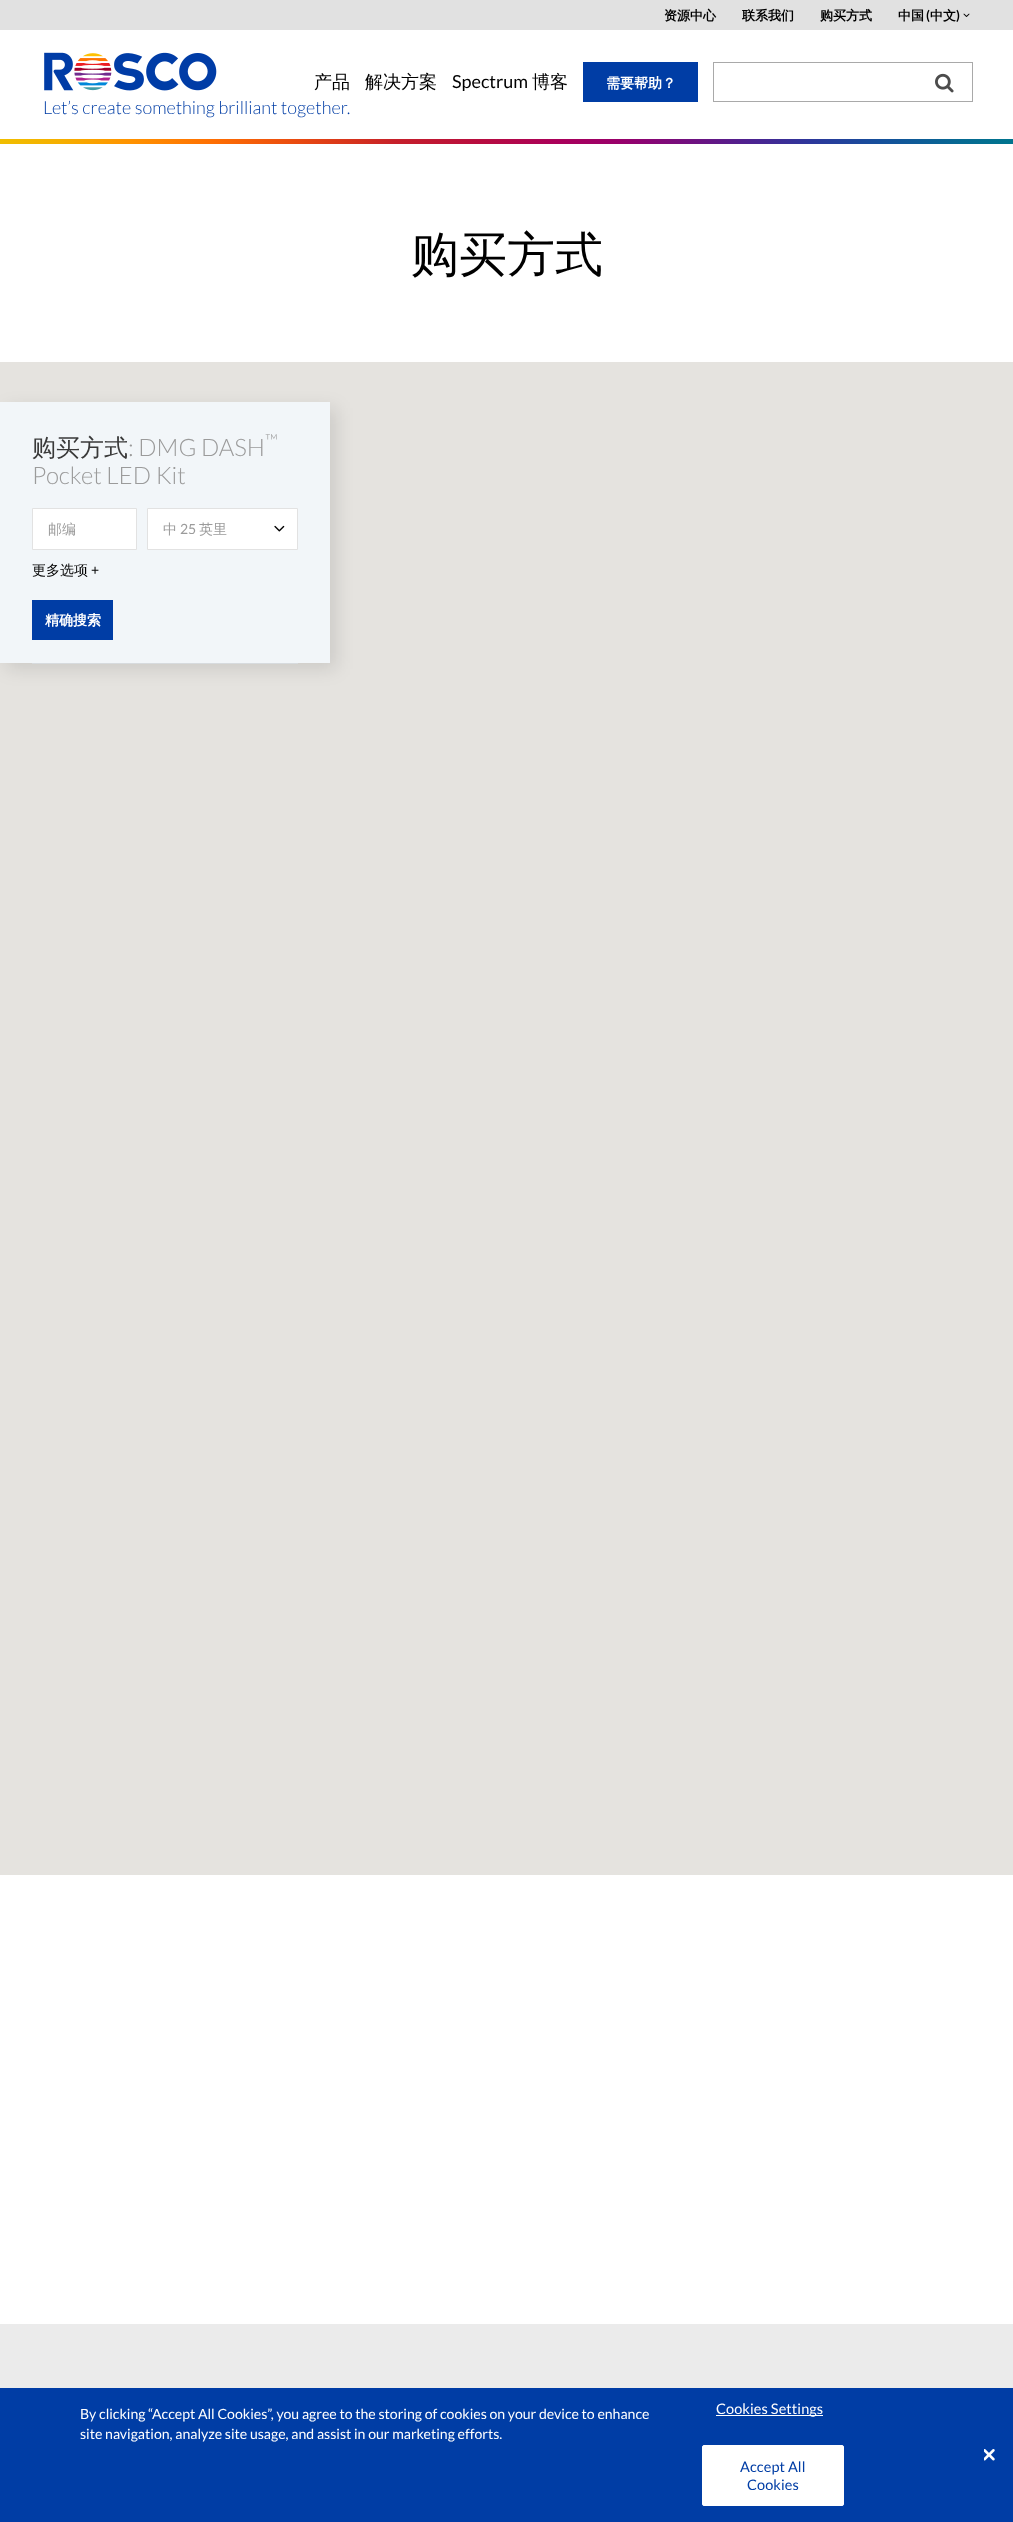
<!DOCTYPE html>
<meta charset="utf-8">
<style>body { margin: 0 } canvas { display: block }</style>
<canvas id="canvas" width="1013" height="2522"></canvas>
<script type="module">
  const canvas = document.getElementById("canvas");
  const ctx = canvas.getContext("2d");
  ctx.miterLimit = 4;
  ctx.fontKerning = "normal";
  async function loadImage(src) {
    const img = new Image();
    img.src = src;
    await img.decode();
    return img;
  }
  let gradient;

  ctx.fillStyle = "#ffffff";
  ctx.fillRect(0, 0, 1013, 2522);
  ctx.fillStyle = "#e1e1e1";
  ctx.fillRect(0, 0, 1013, 30);
  ctx.font = "bold 13px WenQuanYi Zen Hei";
  ctx.fillStyle = "#000000";
  ctx.fillText("资源中心", 664, 20);
  ctx.fillText("联系我们", 742, 20);
  ctx.fillText("购买方式", 820, 20);
  ctx.fillText("中国", 898, 20);
  ctx.font = "bold 13px Lato";
  ctx.fillText("(", 926, 20);
  ctx.font = "bold 13px WenQuanYi Zen Hei";
  ctx.fillText("中文", 930, 20);
  ctx.font = "bold 13px Lato";
  ctx.fillText(")", 956, 20);
  ctx.drawImage(await loadImage("img1.png"), 963, 13, 7, 4);
  ctx.font = "500 18px WenQuanYi Zen Hei";
  ctx.fillText("产品", 314, 88);
  ctx.fillText("解决方案", 365, 88);
  ctx.font = "18px Lato";
  ctx.fillText("Spectrum", 452, 88);
  ctx.font = "500 18px WenQuanYi Zen Hei";
  ctx.fillText("博客", 532, 88);
  ctx.fillStyle = "#003da5";
  ctx.fillRect(583, 62, 115, 40);
  ctx.font = "bold 14px WenQuanYi Zen Hei";
  ctx.fillStyle = "#ffffff";
  ctx.fillText("需要帮助？", 606, 88);
  ctx.strokeStyle = "#a9a9a9";
  ctx.strokeRect(713.5, 62.5, 259, 39);
  ctx.drawImage(await loadImage("img2.png"), 935, 73, 19, 20);
  ctx.drawImage(await loadImage("img3.png"), 44, 52, 173, 39);
  ctx.font = "300 18px Lato";
  ctx.fillStyle = "#003da5";
  ctx.fillText("Let’s create something brilliant together.", 43, 114);
  gradient = ctx.createLinearGradient(0, 140, 1013, 139);
  gradient.addColorStop(0, "#f0be00");
  gradient.addColorStop(0.06, "#f5af00");
  gradient.addColorStop(0.13, "#ff9200");
  gradient.addColorStop(0.21, "#fe6f03");
  gradient.addColorStop(0.29, "#ea4c10");
  gradient.addColorStop(0.35, "#d5321d");
  gradient.addColorStop(0.39, "#c6202a");
  gradient.addColorStop(0.47, "#b80d3e");
  gradient.addColorStop(0.55, "#aa005a");
  gradient.addColorStop(0.61, "#99006a");
  gradient.addColorStop(0.64, "#890574");
  gradient.addColorStop(0.74, "#4d2290");
  gradient.addColorStop(0.8, "#2d379b");
  gradient.addColorStop(0.87, "#15509b");
  gradient.addColorStop(0.95, "#066a92");
  gradient.addColorStop(1, "#00758e");
  ctx.fillStyle = gradient;
  ctx.fillRect(0, 139, 1013, 5);
  ctx.font = "500 48px WenQuanYi Zen Hei";
  ctx.fillStyle = "#000000";
  ctx.fillText("购买方式", 411, 271);
  ctx.fillStyle = "#e5e3df";
  ctx.fillRect(0, 362, 1013, 1513);
  ctx.fillStyle = "rgba(0, 0, 0, 0.11)";
  ctx.filter = "blur(9px)";
  ctx.beginPath();
  ctx.rect(6, 408, 330, 261);
  ctx.fill();
  ctx.filter = "none";
  ctx.fillStyle = "#f2f6f9";
  ctx.fillRect(0, 402, 330, 261);
  ctx.font = "500 24px WenQuanYi Zen Hei";
  ctx.fillStyle = "#393939";
  ctx.fillText("购买方式", 32, 456);
  ctx.font = "300 24px Lato";
  ctx.fillStyle = "#9b9b9b";
  ctx.fillText(": DMG DASH", 128, 456);
  ctx.font = "300 18px Lato";
  ctx.fillText("™", 265, 447);
  ctx.font = "300 24px Lato";
  ctx.fillText("Pocket LED Kit", 32, 484);
  ctx.fillStyle = "#ffffff";
  ctx.beginPath();
  ctx.rect(32.5, 508.5, 104, 41);
  ctx.fill();
  ctx.strokeStyle = "#e2e2e2";
  ctx.stroke();
  ctx.font = "500 14px WenQuanYi Zen Hei";
  ctx.fillStyle = "#9b9b9b";
  ctx.fillText("邮编", 48, 534);
  ctx.fillStyle = "#ffffff";
  ctx.beginPath();
  ctx.rect(147.5, 508.5, 150, 41);
  ctx.fill();
  ctx.stroke();
  ctx.fillStyle = "#9b9b9b";
  ctx.fillText("中", 163, 534);
  ctx.font = "14px Lato";
  ctx.fillText("25", 180, 534);
  ctx.font = "500 14px WenQuanYi Zen Hei";
  ctx.fillText("英里", 199, 534);
  ctx.drawImage(await loadImage("img4.png"), 274, 525, 11, 7);
  ctx.fillStyle = "#000000";
  ctx.fillText("更多选项", 32, 575);
  ctx.font = "14px Lato";
  ctx.fillText("+", 91, 575);
  ctx.fillStyle = "#003da5";
  ctx.fillRect(32, 600, 81, 40);
  ctx.font = "bold 14px WenQuanYi Zen Hei";
  ctx.fillStyle = "#ffffff";
  ctx.fillText("精确搜索", 45, 625);
  ctx.fillStyle = "#d7dbde";
  ctx.fillRect(32, 663, 266, 1);
  ctx.fillStyle = "#ebebeb";
  ctx.fillRect(0, 2324, 1013, 64);
  ctx.fillStyle = "#003da5";
  ctx.fillRect(0, 2388, 1013, 134);
  ctx.font = "14.1px Lato";
  ctx.fillStyle = "#ffffff";
  ctx.fillText("By clicking “Accept All Cookies”, you agree to the storing of cookies on your device to enhance", 80, 2419);
  ctx.fillText("site navigation, analyze site usage, and assist in our marketing efforts.", 80, 2439);
  ctx.fillRect(716, 2415, 107, 1);
  ctx.letterSpacing = "0.1px";
  ctx.font = "14.5px Lato";
  ctx.fillText("Cookies Settings", 716, 2414);
  ctx.beginPath();
  ctx.roundRect(702.5, 2445.5, 141, 60, 1.5);
  ctx.fill();
  ctx.strokeStyle = "#ffffff";
  ctx.stroke();
  ctx.fillStyle = "#003da5";
  ctx.fillText("Accept All", 740, 2472);
  ctx.fillText("Cookies", 747, 2490);
  ctx.drawImage(await loadImage("img5.png"), 984, 2449, 11, 12);
</script>
